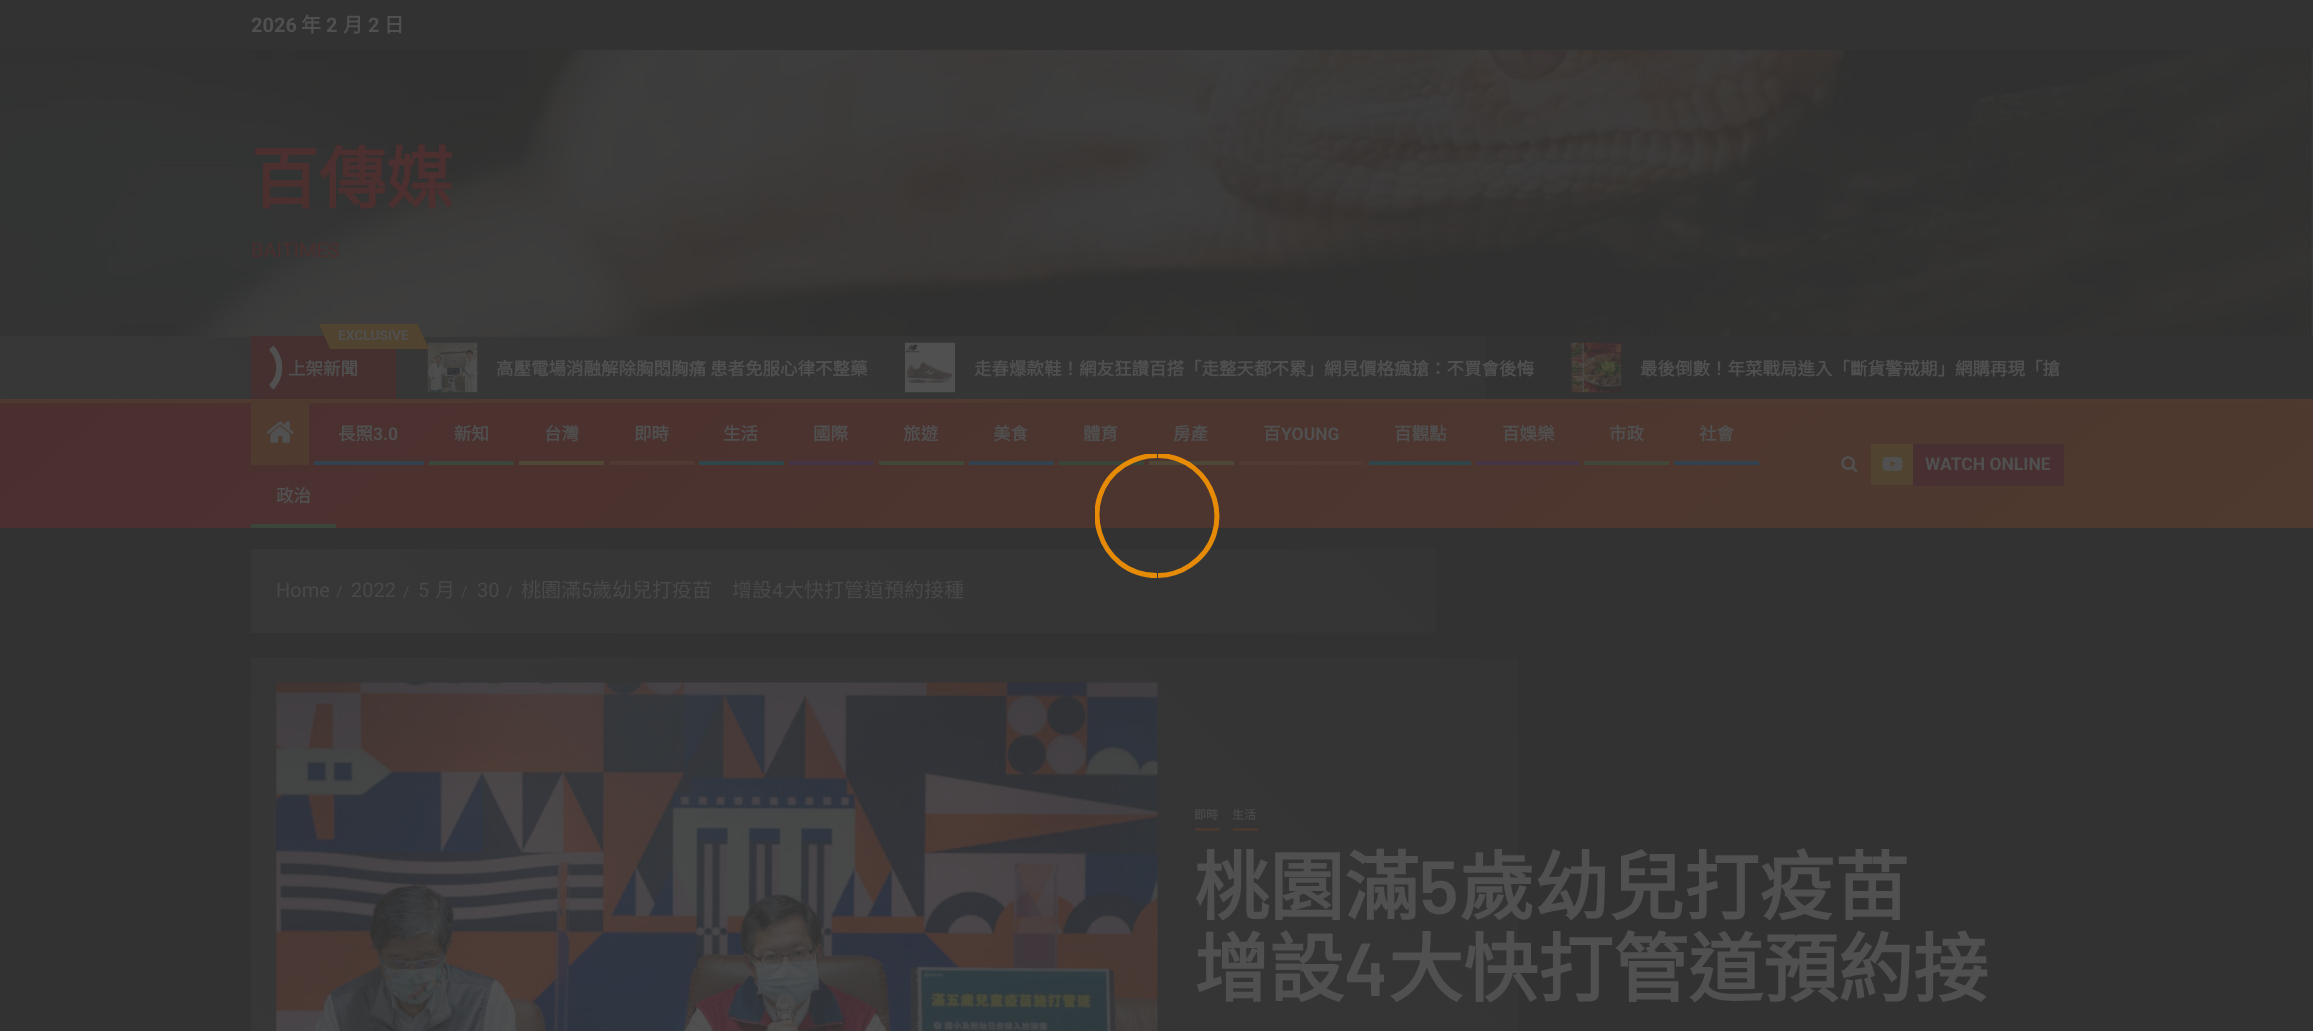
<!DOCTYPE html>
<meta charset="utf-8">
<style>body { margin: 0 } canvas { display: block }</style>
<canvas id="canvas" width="2313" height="1031"></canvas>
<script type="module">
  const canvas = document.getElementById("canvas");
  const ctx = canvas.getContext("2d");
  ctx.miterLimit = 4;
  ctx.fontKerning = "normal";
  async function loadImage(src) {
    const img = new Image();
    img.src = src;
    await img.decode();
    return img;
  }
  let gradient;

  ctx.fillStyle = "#323232";
  ctx.fillRect(0, 0, 2313, 1031);
  ctx.font = "bold 20px Roboto";
  ctx.fillStyle = "#505050";
  ctx.fillText("2026", 251, 32);
  ctx.font = "bold 20px Noto Sans CJK TC";
  ctx.fillText("年", 301, 32);
  ctx.font = "bold 20px Roboto";
  ctx.fillText("2", 326, 32);
  ctx.font = "bold 20px Noto Sans CJK TC";
  ctx.fillText("月", 343, 32);
  ctx.font = "bold 20px Roboto";
  ctx.fillText("2", 368, 32);
  ctx.font = "bold 20px Noto Sans CJK TC";
  ctx.fillText("日", 384, 32);
  gradient = ctx.createLinearGradient(563, 962, 1751, -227);
  gradient.addColorStop(0, "#373737");
  gradient.addColorStop(1, "#333333");
  ctx.fillStyle = gradient;
  ctx.fillRect(0, 336, 1485, 63);
  ctx.drawImage(await loadImage("img1.png"), 0, 50, 2313, 287);
  ctx.font = "bold 67.5px Noto Sans CJK TC";
  ctx.fillStyle = "#4c2f2f";
  ctx.fillText("百傳媒", 251, 203);
  ctx.font = "20px Roboto";
  ctx.fillText("BAITIMES", 251, 257);
  ctx.fillStyle = "#462f2f";
  ctx.fillRect(251, 336, 145, 63);
  ctx.fillStyle = "#50432f";
  ctx.fillRect(330, 324, 88, 25);
  ctx.beginPath();
  ctx.moveTo(319, 324);
  ctx.lineTo(330, 324);
  ctx.lineTo(330, 349);
  ctx.closePath();
  ctx.fill();
  ctx.font = "bold 13.75px Roboto";
  ctx.fillStyle = "#505050";
  ctx.fillText("EXCLUSIVE", 338, 340);
  ctx.drawImage(await loadImage("img2.png"), 427, 342, 51, 51);
  ctx.fillStyle = "#50432f";
  ctx.beginPath();
  ctx.moveTo(429, 349);
  ctx.lineTo(417.5, 349);
  ctx.lineTo(417.5, 324);
  ctx.closePath();
  ctx.fill();
  ctx.beginPath();
  ctx.moveTo(271, 347.5);
  ctx.bezierCurveTo(282, 358.5, 282, 376.5, 271, 387.5);
  ctx.strokeStyle = "#505050";
  ctx.lineWidth = 6.2;
  ctx.stroke();
  ctx.save();
  ctx.beginPath();
  ctx.rect(251, 336, 145, 63);
  ctx.clip();
  ctx.beginPath();
  ctx.moveTo(231.5, 347.5);
  ctx.bezierCurveTo(242, 337, 260.5, 337, 271, 347.5);
  ctx.moveTo(271, 387.5);
  ctx.bezierCurveTo(260.5, 398, 242, 398, 231.5, 387.5);
  ctx.strokeStyle = "#442f31";
  ctx.stroke();
  ctx.restore();
  ctx.font = "bold 17.5px Noto Sans CJK TC";
  ctx.fillStyle = "#505050";
  ctx.fillText("上架新聞", 288, 375);
  ctx.fillText("高壓電場消融解除胸悶胸痛 患者免服心律不整藥", 496, 375);
  ctx.drawImage(await loadImage("img3.png"), 905, 342, 50, 51);
  ctx.fillText("走春爆款鞋！網友狂讚百搭「走整天都不累」網見價格瘋搶：不買會後悔", 974, 375);
  ctx.drawImage(await loadImage("img4.png"), 1571, 342, 51, 51);
  ctx.fillText("最後倒數！年菜戰局進入「斷貨警戒期」網購再現「搶", 1640, 375);
  gradient = ctx.createLinearGradient(648, -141, 1666, 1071);
  gradient.addColorStop(0, "#4a2f2f");
  gradient.addColorStop(1, "#4e3a2f");
  ctx.fillStyle = gradient;
  ctx.fillRect(0, 403, 2313, 125);
  ctx.fillStyle = "#4e3a2f";
  ctx.fillRect(0, 399, 2313, 4);
  ctx.fillRect(251, 403, 58, 62);
  ctx.drawImage(await loadImage("img5.png"), 266, 421, 28, 22);
  ctx.fillStyle = "#505050";
  ctx.fillText("長照", 338, 440);
  ctx.font = "bold 17.5px Roboto";
  ctx.fillText("3.0", 373, 440);
  ctx.fillStyle = "#33424f";
  ctx.fillRect(314, 461, 110, 4);
  ctx.font = "bold 17.5px Noto Sans CJK TC";
  ctx.fillStyle = "#505050";
  ctx.fillText("新知", 454, 440);
  ctx.fillStyle = "#394639";
  ctx.fillRect(429, 461, 85, 4);
  ctx.fillStyle = "#505050";
  ctx.fillText("台灣", 544, 440);
  ctx.fillStyle = "#504837";
  ctx.fillRect(519, 461, 85, 4);
  ctx.fillStyle = "#505050";
  ctx.fillText("即時", 634, 440);
  ctx.fillStyle = "#503a33";
  ctx.fillRect(609, 461, 85, 4);
  ctx.fillStyle = "#505050";
  ctx.fillText("生活", 723, 440);
  ctx.fillStyle = "#2f474b";
  ctx.fillRect(699, 461, 85, 4);
  ctx.fillStyle = "#505050";
  ctx.fillText("國際", 813, 440);
  ctx.fillStyle = "#433446";
  ctx.fillRect(789, 461, 85, 4);
  ctx.fillStyle = "#505050";
  ctx.fillText("旅遊", 903, 440);
  ctx.fillStyle = "#414839";
  ctx.fillRect(879, 461, 85, 4);
  ctx.fillStyle = "#505050";
  ctx.fillText("美食", 993, 440);
  ctx.fillStyle = "#33424f";
  ctx.fillRect(969, 461, 85, 4);
  ctx.fillStyle = "#505050";
  ctx.fillText("體育", 1083, 440);
  ctx.fillStyle = "#394639";
  ctx.fillRect(1059, 461, 85, 4);
  ctx.fillStyle = "#505050";
  ctx.fillText("房產", 1173, 440);
  ctx.fillStyle = "#504837";
  ctx.fillRect(1149, 461, 85, 4);
  ctx.fillStyle = "#505050";
  ctx.fillText("百", 1263, 440);
  ctx.font = "bold 17.5px Roboto";
  ctx.fillText("YOUNG", 1281, 440);
  ctx.fillStyle = "#503a33";
  ctx.fillRect(1239, 461, 125, 4);
  ctx.font = "bold 17.5px Noto Sans CJK TC";
  ctx.fillStyle = "#505050";
  ctx.fillText("百觀點", 1394, 440);
  ctx.fillStyle = "#2f474b";
  ctx.fillRect(1369, 461, 102, 4);
  ctx.fillStyle = "#505050";
  ctx.fillText("百娛樂", 1502, 440);
  ctx.fillStyle = "#433446";
  ctx.fillRect(1476, 461, 103, 4);
  ctx.fillStyle = "#505050";
  ctx.fillText("市政", 1609, 440);
  ctx.fillStyle = "#414839";
  ctx.fillRect(1584, 461, 85, 4);
  ctx.fillStyle = "#505050";
  ctx.fillText("社會", 1699, 440);
  ctx.fillStyle = "#33424f";
  ctx.fillRect(1674, 461, 85, 4);
  ctx.fillStyle = "#505050";
  ctx.fillText("政治", 276, 502);
  ctx.fillStyle = "#394639";
  ctx.fillRect(251, 524, 85, 4);
  ctx.drawImage(await loadImage("img6.png"), 1841, 456, 17, 17);
  ctx.fillStyle = "#50432f";
  ctx.fillRect(1871, 444, 42, 41);
  ctx.drawImage(await loadImage("img7.png"), 1882, 456, 21, 15);
  ctx.fillStyle = "#482f31";
  ctx.fillRect(1913, 444, 151, 42);
  ctx.font = "bold 17.5px Roboto";
  ctx.fillStyle = "#505050";
  ctx.fillText("WATCH ONLINE", 1925, 470);
  gradient = ctx.createLinearGradient(683, 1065, 1632, 117);
  gradient.addColorStop(0, "#373737");
  gradient.addColorStop(1, "#333333");
  ctx.fillStyle = gradient;
  ctx.fillRect(251, 549, 1185, 84);
  ctx.font = "20px Roboto";
  ctx.fillStyle = "#494949";
  ctx.fillText("Home", 276, 597);
  ctx.font = "16px Roboto";
  ctx.fillText("/", 336, 597);
  ctx.font = "20px Roboto";
  ctx.fillText("2022", 351, 597);
  ctx.font = "16px Roboto";
  ctx.fillText("/", 403, 597);
  ctx.font = "20px Roboto";
  ctx.fillText("5", 418, 597);
  ctx.font = "20px Noto Sans CJK TC";
  ctx.fillText("月", 435, 597);
  ctx.font = "16px Roboto";
  ctx.fillText("/", 461, 597);
  ctx.font = "20px Roboto";
  ctx.fillText("30", 477, 597);
  ctx.font = "16px Roboto";
  ctx.fillText("/", 506, 597);
  ctx.font = "20px Noto Sans CJK TC";
  ctx.fillText("桃園滿", 521, 597);
  ctx.font = "20px Roboto";
  ctx.fillText("5", 581, 597);
  ctx.font = "20px Noto Sans CJK TC";
  ctx.fillText("歲幼兒打疫苗　增設", 592, 597);
  ctx.font = "20px Roboto";
  ctx.fillText("4", 772, 597);
  ctx.font = "20px Noto Sans CJK TC";
  ctx.fillText("大快打管道預約接種", 784, 597);
  gradient = ctx.createLinearGradient(545, 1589, 1770, 364);
  gradient.addColorStop(0, "#373737");
  gradient.addColorStop(1, "#333333");
  ctx.fillStyle = gradient;
  ctx.fillRect(251, 658, 1267, 373);
  ctx.drawImage(await loadImage("img8.png"), 276, 682, 882, 349);
  ctx.fillStyle = "#483930";
  ctx.fillRect(1195, 828, 25, 3);
  ctx.font = "bold 12px Noto Sans CJK TC";
  ctx.fillStyle = "#494949";
  ctx.fillText("即時", 1194, 819);
  ctx.fillStyle = "#483930";
  ctx.fillRect(1233, 828, 25, 3);
  ctx.fillStyle = "#494949";
  ctx.fillText("生活", 1232, 819);
  ctx.font = "bold 75px Noto Sans CJK TC";
  ctx.fillStyle = "#505050";
  ctx.fillText("桃園滿", 1194, 914);
  ctx.font = "600 75px Barlow";
  ctx.fillText("5", 1419, 914);
  ctx.font = "bold 75px Noto Sans CJK TC";
  ctx.fillText("歲幼兒打疫苗", 1459, 914);
  ctx.fillText("增設", 1194, 996);
  ctx.font = "600 75px Barlow";
  ctx.fillText("4", 1344, 996);
  ctx.font = "bold 75px Noto Sans CJK TC";
  ctx.fillText("大快打管道預約接", 1388, 996);
  ctx.beginPath();
  ctx.arc(1157.5, 516.5, 60, 0, Math.PI * 2);
  ctx.strokeStyle = "rgba(64, 64, 64, 0.17)";
  ctx.lineWidth = 5;
  ctx.stroke();
  ctx.save();
  ctx.beginPath();
  ctx.rect(1095, 454, 63, 125);
  ctx.clip();
  ctx.beginPath();
  ctx.moveTo(1157, 575.5);
  ctx.bezierCurveTo(1098, 575.5, 1074.5, 498.5, 1123.5, 465.5);
  ctx.bezierCurveTo(1133.5, 459, 1145, 455.5, 1157, 455.5);
  ctx.strokeStyle = "rgba(255, 152, 0, 0.87)";
  ctx.stroke();
  ctx.restore();
  ctx.save();
  ctx.beginPath();
  ctx.rect(1158, 454, 62, 125);
  ctx.clip();
  ctx.beginPath();
  ctx.moveTo(1157, 455.5);
  ctx.bezierCurveTo(1216, 455.5, 1239.5, 533, 1190, 565.5);
  ctx.bezierCurveTo(1180.5, 572, 1168.5, 575.5, 1157, 575.5);
  ctx.strokeStyle = "rgba(255, 152, 0, 0.87)";
  ctx.stroke();
  ctx.restore();
</script>
